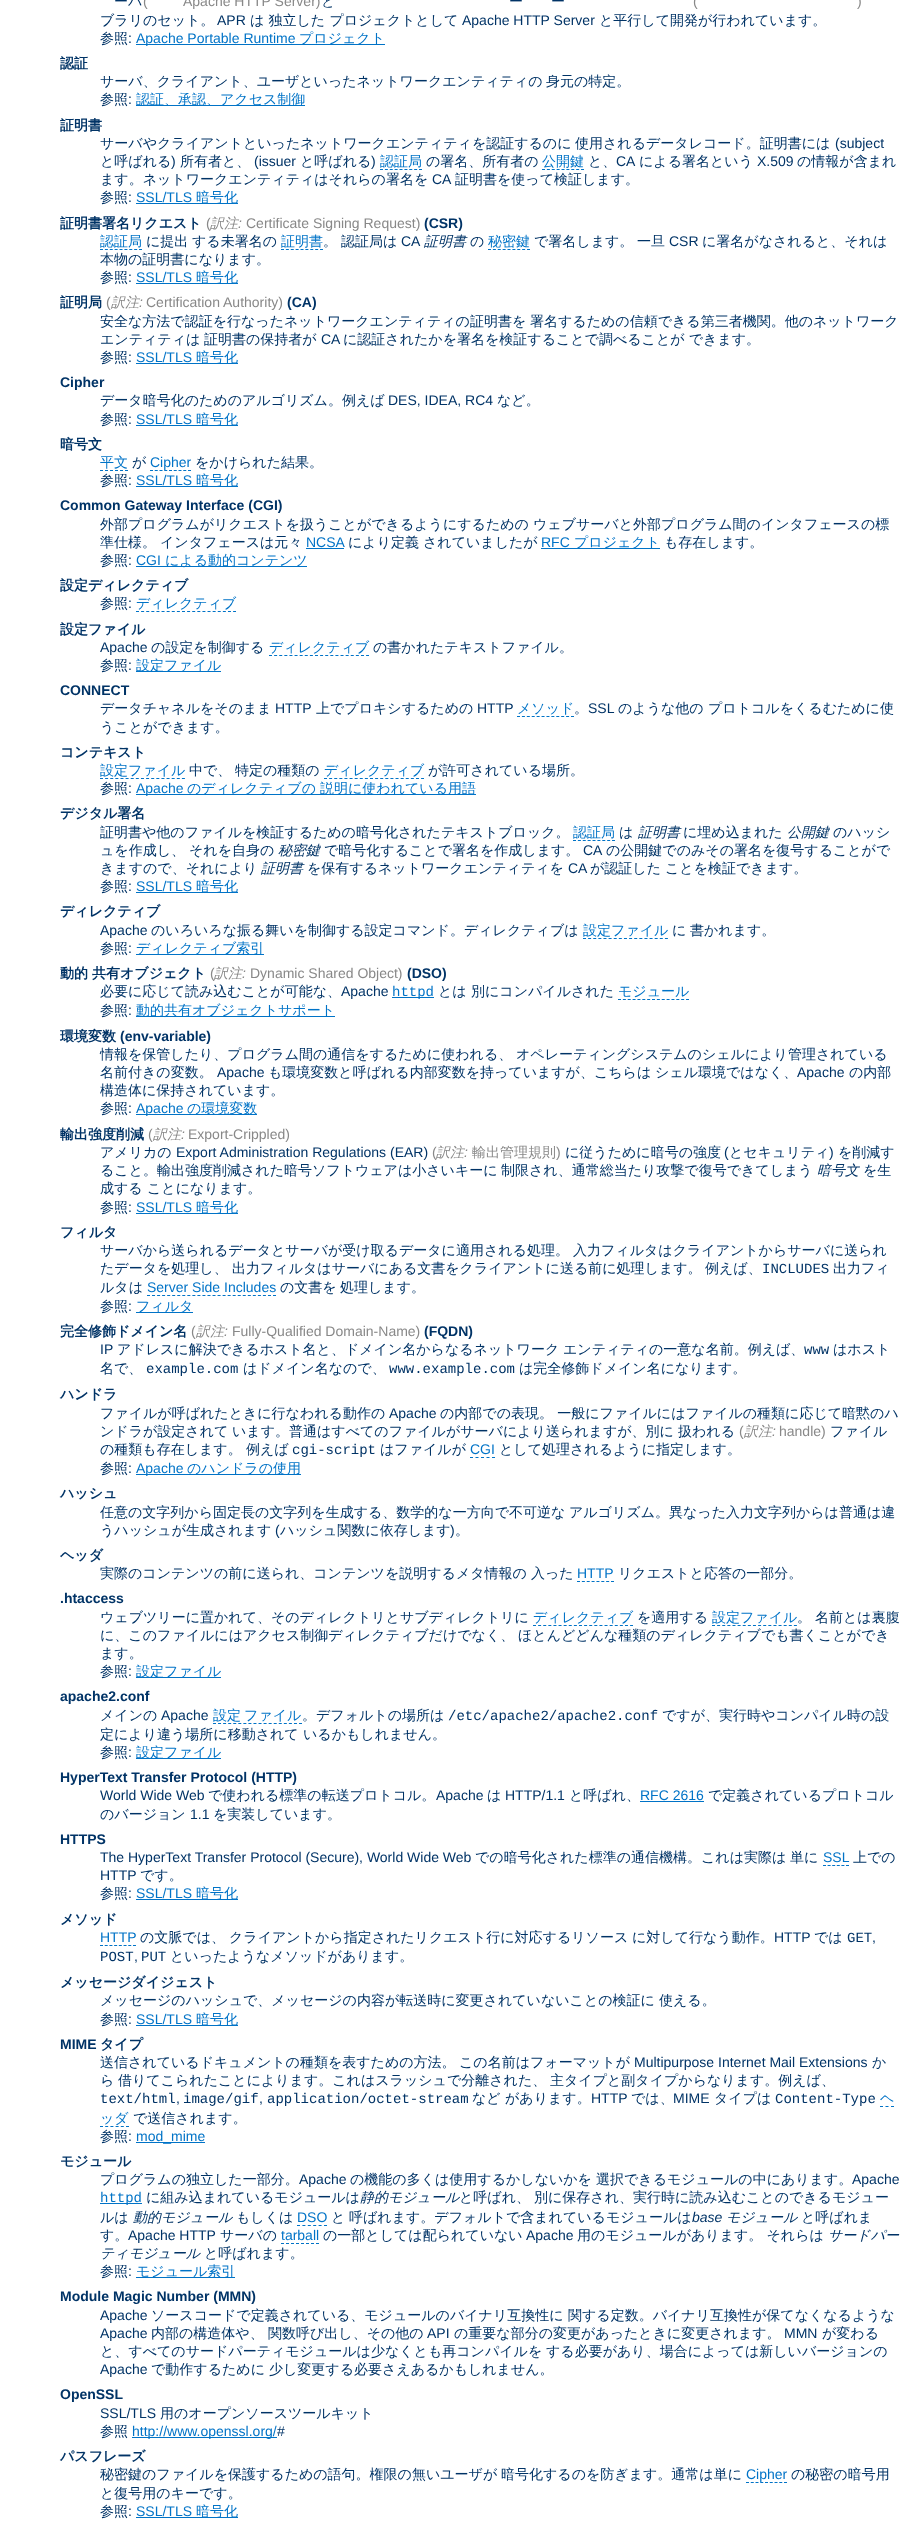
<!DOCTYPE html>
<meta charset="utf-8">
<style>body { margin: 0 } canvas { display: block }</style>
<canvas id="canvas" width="914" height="2533"></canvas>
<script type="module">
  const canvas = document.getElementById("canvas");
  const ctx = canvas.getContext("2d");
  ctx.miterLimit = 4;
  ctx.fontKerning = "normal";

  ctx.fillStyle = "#ffffff";
  ctx.fillRect(0, 0, 914, 2533);
  ctx.font = "500 14px WenQuanYi Zen Hei";
  ctx.fillStyle = "#003366";
  ctx.fillText("ーバ", 114, 6);
  ctx.font = "14px Liberation Sans";
  ctx.fillStyle = "#888888";
  ctx.fillText("(", 143, 6);
  ctx.fillText("Apache HTTP Server)", 183, 6);
  ctx.font = "500 14px WenQuanYi Zen Hei";
  ctx.fillStyle = "#003366";
  ctx.fillText("と", 321, 6);
  ctx.fillText("ー", 509, 6);
  ctx.fillText("ー", 551, 6);
  ctx.font = "14px Liberation Sans";
  ctx.fillStyle = "#888888";
  ctx.fillText("(", 693, 6);
  ctx.fillText(")", 857, 6);
  ctx.font = "500 14px WenQuanYi Zen Hei";
  ctx.fillStyle = "#003366";
  ctx.fillText("ブラリのセット。", 100, 25);
  ctx.font = "14px Liberation Sans";
  ctx.fillText("APR", 217, 25);
  ctx.font = "500 14px WenQuanYi Zen Hei";
  ctx.fillText("は 独立した プロジェクトとして", 250, 25);
  ctx.font = "14px Liberation Sans";
  ctx.fillText("Apache HTTP Server", 462, 25);
  ctx.font = "500 14px WenQuanYi Zen Hei";
  ctx.fillText("と平行して開発が行われています。", 599, 25);
  ctx.fillText("参照", 100, 43);
  ctx.font = "14px Liberation Sans";
  ctx.fillText(":", 128, 43);
  ctx.fillStyle = "#0073c7";
  ctx.fillRect(136, 44, 249, 1);
  ctx.fillText("Apache Portable Runtime", 136, 43);
  ctx.font = "500 14px WenQuanYi Zen Hei";
  ctx.fillText("プロジェクト", 299, 43);
  ctx.font = "bold 14px WenQuanYi Zen Hei";
  ctx.fillStyle = "#003366";
  ctx.fillText("認証", 60, 68);
  ctx.font = "500 14px WenQuanYi Zen Hei";
  ctx.fillText("サーバ、クライアント、ユーザといったネットワークエンティティの", 100, 86);
  ctx.fillText("身元の特定。", 546, 86);
  ctx.fillText("参照", 100, 104);
  ctx.font = "14px Liberation Sans";
  ctx.fillText(":", 128, 104);
  ctx.fillStyle = "#0073c7";
  ctx.fillRect(136, 105, 169, 1);
  ctx.font = "500 14px WenQuanYi Zen Hei";
  ctx.fillText("認証、承認、アクセス制御", 136, 104);
  ctx.font = "bold 14px WenQuanYi Zen Hei";
  ctx.fillStyle = "#003366";
  ctx.fillText("証明書", 60, 130);
  ctx.font = "500 14px WenQuanYi Zen Hei";
  ctx.fillText("サーバやクライアントといったネットワークエンティティを認証するのに", 100, 148);
  ctx.fillText("使用されるデータレコード。証明書には", 575, 148);
  ctx.font = "14px Liberation Sans";
  ctx.fillText("(subject", 835, 148);
  ctx.font = "500 14px WenQuanYi Zen Hei";
  ctx.fillText("と呼ばれる", 100, 166);
  ctx.font = "14px Liberation Sans";
  ctx.fillText(")", 171, 166);
  ctx.font = "500 14px WenQuanYi Zen Hei";
  ctx.fillText("所有者と、", 180, 166);
  ctx.font = "14px Liberation Sans";
  ctx.fillText("(issuer", 254, 166);
  ctx.font = "500 14px WenQuanYi Zen Hei";
  ctx.fillText("と呼ばれる", 300, 166);
  ctx.font = "14px Liberation Sans";
  ctx.fillText(")", 371, 166);
  ctx.font = "500 14px WenQuanYi Zen Hei";
  ctx.fillStyle = "#0073c7";
  ctx.fillText("認証局", 380, 166);
  ctx.beginPath();
  ctx.moveTo(380, 169.5);
  ctx.lineTo(422, 169.5);
  ctx.strokeStyle = "#0073c7";
  ctx.setLineDash([3, 1.88]);
  ctx.stroke();
  ctx.fillStyle = "#003366";
  ctx.fillText("の署名、所有者の", 426, 166);
  ctx.fillStyle = "#0073c7";
  ctx.fillText("公開鍵", 542, 166);
  ctx.beginPath();
  ctx.moveTo(542, 169.5);
  ctx.lineTo(584, 169.5);
  ctx.stroke();
  ctx.fillStyle = "#003366";
  ctx.fillText("と、", 588, 166);
  ctx.font = "14px Liberation Sans";
  ctx.fillText("CA", 616, 166);
  ctx.font = "500 14px WenQuanYi Zen Hei";
  ctx.fillText("による署名という", 639, 166);
  ctx.font = "14px Liberation Sans";
  ctx.fillText("X.509", 757, 166);
  ctx.font = "500 14px WenQuanYi Zen Hei";
  ctx.fillText("の情報が含まれ", 797, 166);
  ctx.fillText("ます。ネットワークエンティティはそれらの署名を", 100, 184);
  ctx.font = "14px Liberation Sans";
  ctx.fillText("CA", 432, 184);
  ctx.font = "500 14px WenQuanYi Zen Hei";
  ctx.fillText("証明書を使って検証します。", 455, 184);
  ctx.fillText("参照", 100, 202);
  ctx.font = "14px Liberation Sans";
  ctx.fillText(":", 128, 202);
  ctx.fillStyle = "#0073c7";
  ctx.fillText("SSL/TLS", 136, 202);
  ctx.fillRect(136, 203, 102, 1);
  ctx.font = "500 14px WenQuanYi Zen Hei";
  ctx.fillText("暗号化", 196, 202);
  ctx.font = "bold 14px WenQuanYi Zen Hei";
  ctx.fillStyle = "#003366";
  ctx.fillText("証明書署名リクエスト", 60, 228);
  ctx.font = "14px Liberation Sans";
  ctx.fillStyle = "#888888";
  ctx.fillText("(", 206, 228);
  ctx.font = "italic 500 14px WenQuanYi Zen Hei";
  ctx.fillText("訳注", 210, 228);
  ctx.font = "14px Liberation Sans";
  ctx.fillText("Certificate Signing Request)", 246, 228);
  ctx.font = "bold 14px Liberation Sans";
  ctx.fillStyle = "#003366";
  ctx.fillText("(CSR)", 424, 228);
  ctx.font = "italic 14px Liberation Sans";
  ctx.fillStyle = "#888888";
  ctx.fillText(":", 238, 228);
  ctx.font = "500 14px WenQuanYi Zen Hei";
  ctx.fillStyle = "#0073c7";
  ctx.fillText("認証局", 100, 246);
  ctx.beginPath();
  ctx.moveTo(100, 249.5);
  ctx.lineTo(142, 249.5);
  ctx.stroke();
  ctx.fillStyle = "#003366";
  ctx.fillText("に提出", 146, 246);
  ctx.fillText("する未署名の", 192, 246);
  ctx.fillStyle = "#0073c7";
  ctx.fillText("証明書", 281, 246);
  ctx.beginPath();
  ctx.moveTo(281, 249.5);
  ctx.lineTo(323, 249.5);
  ctx.stroke();
  ctx.fillStyle = "#003366";
  ctx.fillText("。", 323, 246);
  ctx.fillText("認証局は", 341, 246);
  ctx.font = "14px Liberation Sans";
  ctx.fillText("CA", 401, 246);
  ctx.font = "italic 500 14px WenQuanYi Zen Hei";
  ctx.fillText("証明書", 424, 246);
  ctx.font = "500 14px WenQuanYi Zen Hei";
  ctx.fillText("の", 470, 246);
  ctx.fillStyle = "#0073c7";
  ctx.fillText("秘密鍵", 488, 246);
  ctx.beginPath();
  ctx.moveTo(488, 249.5);
  ctx.lineTo(530, 249.5);
  ctx.stroke();
  ctx.fillStyle = "#003366";
  ctx.fillText("で署名します。", 534, 246);
  ctx.fillText("一旦", 637, 246);
  ctx.font = "14px Liberation Sans";
  ctx.fillText("CSR", 669, 246);
  ctx.font = "500 14px WenQuanYi Zen Hei";
  ctx.fillText("に署名がなされると、それは", 702, 246);
  ctx.fillText("本物の証明書になります。", 100, 264);
  ctx.fillText("参照", 100, 282);
  ctx.font = "14px Liberation Sans";
  ctx.fillText(":", 128, 282);
  ctx.fillStyle = "#0073c7";
  ctx.fillText("SSL/TLS", 136, 282);
  ctx.fillRect(136, 283, 102, 1);
  ctx.font = "500 14px WenQuanYi Zen Hei";
  ctx.fillText("暗号化", 196, 282);
  ctx.font = "bold 14px WenQuanYi Zen Hei";
  ctx.fillStyle = "#003366";
  ctx.fillText("証明局", 60, 307);
  ctx.font = "14px Liberation Sans";
  ctx.fillStyle = "#888888";
  ctx.fillText("(", 106, 307);
  ctx.font = "italic 500 14px WenQuanYi Zen Hei";
  ctx.fillText("訳注", 111, 307);
  ctx.font = "italic 14px Liberation Sans";
  ctx.fillText(":", 139, 307);
  ctx.font = "14px Liberation Sans";
  ctx.fillText("Certification Authority)", 146, 307);
  ctx.font = "bold 14px Liberation Sans";
  ctx.fillStyle = "#003366";
  ctx.fillText("(CA)", 287, 307);
  ctx.font = "500 14px WenQuanYi Zen Hei";
  ctx.fillText("安全な方法で認証を行なったネットワークエンティティの証明書を", 100, 326);
  ctx.fillText("署名するための信頼できる第三者機関。他のネットワーク", 530, 326);
  ctx.fillText("エンティティは", 100, 344);
  ctx.fillText("証明書の保持者が", 204, 344);
  ctx.font = "14px Liberation Sans";
  ctx.fillText("CA", 321, 344);
  ctx.font = "500 14px WenQuanYi Zen Hei";
  ctx.fillText("に認証されたかを署名を検証することで調べることが できます。", 343, 344);
  ctx.fillText("参照", 100, 362);
  ctx.font = "14px Liberation Sans";
  ctx.fillText(":", 128, 362);
  ctx.fillStyle = "#0073c7";
  ctx.fillText("SSL/TLS", 136, 362);
  ctx.fillRect(136, 363, 102, 1);
  ctx.font = "500 14px WenQuanYi Zen Hei";
  ctx.fillText("暗号化", 196, 362);
  ctx.font = "bold 14px Liberation Sans";
  ctx.fillStyle = "#003366";
  ctx.fillText("Cipher", 60, 387);
  ctx.font = "500 14px WenQuanYi Zen Hei";
  ctx.fillText("データ暗号化のためのアルゴリズム。例えば", 100, 405);
  ctx.font = "14px Liberation Sans";
  ctx.fillText("DES, IDEA, RC4", 388, 405);
  ctx.font = "500 14px WenQuanYi Zen Hei";
  ctx.fillText("など。", 497, 405);
  ctx.fillText("参照", 100, 424);
  ctx.font = "14px Liberation Sans";
  ctx.fillText(":", 128, 424);
  ctx.fillStyle = "#0073c7";
  ctx.fillText("SSL/TLS", 136, 424);
  ctx.fillRect(136, 425, 102, 1);
  ctx.font = "500 14px WenQuanYi Zen Hei";
  ctx.fillText("暗号化", 196, 424);
  ctx.font = "bold 14px WenQuanYi Zen Hei";
  ctx.fillStyle = "#003366";
  ctx.fillText("暗号文", 60, 449);
  ctx.font = "500 14px WenQuanYi Zen Hei";
  ctx.fillStyle = "#0073c7";
  ctx.fillText("平文", 100, 467);
  ctx.beginPath();
  ctx.moveTo(100, 470.5);
  ctx.lineTo(128, 470.5);
  ctx.setLineDash([3, 2]);
  ctx.stroke();
  ctx.fillStyle = "#003366";
  ctx.fillText("が", 132, 467);
  ctx.font = "14px Liberation Sans";
  ctx.fillStyle = "#0073c7";
  ctx.fillText("Cipher", 150, 467);
  ctx.beginPath();
  ctx.moveTo(150, 470.5);
  ctx.lineTo(191, 470.5);
  ctx.setLineDash([3, 1.75]);
  ctx.stroke();
  ctx.font = "500 14px WenQuanYi Zen Hei";
  ctx.fillStyle = "#003366";
  ctx.fillText("をかけられた結果。", 195, 467);
  ctx.fillText("参照", 100, 485);
  ctx.font = "14px Liberation Sans";
  ctx.fillText(":", 128, 485);
  ctx.fillStyle = "#0073c7";
  ctx.fillText("SSL/TLS", 136, 485);
  ctx.fillRect(136, 486, 102, 1);
  ctx.font = "500 14px WenQuanYi Zen Hei";
  ctx.fillText("暗号化", 196, 485);
  ctx.font = "bold 14px Liberation Sans";
  ctx.fillStyle = "#003366";
  ctx.fillText("Common Gateway Interface (CGI)", 60, 510);
  ctx.font = "500 14px WenQuanYi Zen Hei";
  ctx.fillText("外部プログラムがリクエストを扱うことができるようにするための", 100, 529);
  ctx.fillText("ウェブサーバと外部プログラム間のインタフェースの標", 533, 529);
  ctx.fillText("準仕様。", 100, 547);
  ctx.fillText("インタフェースは元々", 160, 547);
  ctx.font = "14px Liberation Sans";
  ctx.fillStyle = "#0073c7";
  ctx.fillText("NCSA", 306, 547);
  ctx.fillRect(306, 548, 38, 1);
  ctx.font = "500 14px WenQuanYi Zen Hei";
  ctx.fillStyle = "#003366";
  ctx.fillText("により定義", 348, 547);
  ctx.fillText("されていましたが", 423, 547);
  ctx.font = "14px Liberation Sans";
  ctx.fillStyle = "#0073c7";
  ctx.fillText("RFC", 541, 547);
  ctx.fillRect(541, 548, 119, 1);
  ctx.font = "500 14px WenQuanYi Zen Hei";
  ctx.fillText("プロジェクト", 574, 547);
  ctx.fillStyle = "#003366";
  ctx.fillText("も存在します。", 664, 547);
  ctx.fillText("参照", 100, 565);
  ctx.font = "14px Liberation Sans";
  ctx.fillText(":", 128, 565);
  ctx.fillStyle = "#0073c7";
  ctx.fillText("CGI", 136, 565);
  ctx.fillRect(136, 566, 171, 1);
  ctx.font = "500 14px WenQuanYi Zen Hei";
  ctx.fillText("による動的コンテンツ", 165, 565);
  ctx.font = "bold 14px WenQuanYi Zen Hei";
  ctx.fillStyle = "#003366";
  ctx.fillText("設定ディレクティブ", 60, 590);
  ctx.font = "500 14px WenQuanYi Zen Hei";
  ctx.fillText("参照", 100, 608);
  ctx.font = "14px Liberation Sans";
  ctx.fillText(":", 128, 608);
  ctx.font = "500 14px WenQuanYi Zen Hei";
  ctx.fillStyle = "#0073c7";
  ctx.fillText("ディレクティブ", 136, 608);
  ctx.beginPath();
  ctx.moveTo(136, 611.5);
  ctx.lineTo(236, 611.5);
  ctx.setLineDash([3, 2.11]);
  ctx.stroke();
  ctx.font = "bold 14px WenQuanYi Zen Hei";
  ctx.fillStyle = "#003366";
  ctx.fillText("設定ファイル", 60, 634);
  ctx.font = "14px Liberation Sans";
  ctx.fillText("Apache", 100, 652);
  ctx.font = "500 14px WenQuanYi Zen Hei";
  ctx.fillText("の設定を制御する", 151, 652);
  ctx.fillStyle = "#0073c7";
  ctx.fillText("ディレクティブ", 269, 652);
  ctx.beginPath();
  ctx.moveTo(269, 655.5);
  ctx.lineTo(369, 655.5);
  ctx.stroke();
  ctx.fillStyle = "#003366";
  ctx.fillText("の書かれたテキストファイル。", 373, 652);
  ctx.fillText("参照", 100, 670);
  ctx.font = "14px Liberation Sans";
  ctx.fillText(":", 128, 670);
  ctx.fillStyle = "#0073c7";
  ctx.fillRect(136, 671, 85, 1);
  ctx.font = "500 14px WenQuanYi Zen Hei";
  ctx.fillText("設定ファイル", 136, 670);
  ctx.font = "bold 14px Liberation Sans";
  ctx.fillStyle = "#003366";
  ctx.fillText("CONNECT", 60, 695);
  ctx.font = "500 14px WenQuanYi Zen Hei";
  ctx.fillText("データチャネルをそのまま", 100, 713);
  ctx.font = "14px Liberation Sans";
  ctx.fillText("HTTP", 275, 713);
  ctx.font = "500 14px WenQuanYi Zen Hei";
  ctx.fillText("上でプロキシするための", 316, 713);
  ctx.font = "14px Liberation Sans";
  ctx.fillText("HTTP", 477, 713);
  ctx.font = "500 14px WenQuanYi Zen Hei";
  ctx.fillStyle = "#0073c7";
  ctx.fillText("メソッド", 517, 713);
  ctx.beginPath();
  ctx.moveTo(517, 716.5);
  ctx.lineTo(574, 716.5);
  ctx.setLineDash([3, 1.91]);
  ctx.stroke();
  ctx.fillStyle = "#003366";
  ctx.fillText("。", 574, 713);
  ctx.font = "14px Liberation Sans";
  ctx.fillText("SSL", 588, 713);
  ctx.font = "500 14px WenQuanYi Zen Hei";
  ctx.fillText("のような他の", 618, 713);
  ctx.fillText("プロトコルをくるむために使", 708, 713);
  ctx.fillText("うことができます。", 100, 732);
  ctx.font = "bold 14px WenQuanYi Zen Hei";
  ctx.fillText("コンテキスト", 60, 757);
  ctx.font = "500 14px WenQuanYi Zen Hei";
  ctx.fillStyle = "#0073c7";
  ctx.fillText("設定ファイル", 100, 775);
  ctx.beginPath();
  ctx.moveTo(100, 778.5);
  ctx.lineTo(185, 778.5);
  ctx.setLineDash([3, 2.12]);
  ctx.stroke();
  ctx.fillStyle = "#003366";
  ctx.fillText("中で、", 189, 775);
  ctx.fillText("特定の種類の", 235, 775);
  ctx.fillStyle = "#0073c7";
  ctx.fillText("ディレクティブ", 324, 775);
  ctx.beginPath();
  ctx.moveTo(324, 778.5);
  ctx.lineTo(424, 778.5);
  ctx.setLineDash([3, 2.11]);
  ctx.stroke();
  ctx.fillStyle = "#003366";
  ctx.fillText("が許可されている場所。", 428, 775);
  ctx.fillText("参照", 100, 793);
  ctx.font = "14px Liberation Sans";
  ctx.fillText(":", 128, 793);
  ctx.fillStyle = "#0073c7";
  ctx.fillRect(136, 794, 340, 1);
  ctx.fillText("Apache", 136, 793);
  ctx.font = "500 14px WenQuanYi Zen Hei";
  ctx.fillText("のディレクティブの", 187, 793);
  ctx.fillText("説明に使われている用語", 320, 793);
  ctx.font = "bold 14px WenQuanYi Zen Hei";
  ctx.fillStyle = "#003366";
  ctx.fillText("デジタル署名", 60, 818);
  ctx.font = "500 14px WenQuanYi Zen Hei";
  ctx.fillText("証明書や他のファイルを検証するための暗号化されたテキストブロック。", 100, 837);
  ctx.fillStyle = "#0073c7";
  ctx.fillText("認証局", 573, 837);
  ctx.beginPath();
  ctx.moveTo(573, 840.5);
  ctx.lineTo(615, 840.5);
  ctx.setLineDash([3, 1.88]);
  ctx.stroke();
  ctx.fillStyle = "#003366";
  ctx.fillText("は", 619, 837);
  ctx.font = "italic 500 14px WenQuanYi Zen Hei";
  ctx.fillText("証明書", 638, 837);
  ctx.font = "500 14px WenQuanYi Zen Hei";
  ctx.fillText("に埋め込まれた", 683, 837);
  ctx.font = "italic 500 14px WenQuanYi Zen Hei";
  ctx.fillText("公開鍵", 787, 837);
  ctx.font = "500 14px WenQuanYi Zen Hei";
  ctx.fillText("のハッシ", 833, 837);
  ctx.fillText("ュを作成し、", 100, 855);
  ctx.fillText("それを自身の", 189, 855);
  ctx.font = "italic 500 14px WenQuanYi Zen Hei";
  ctx.fillText("秘密鍵", 278, 855);
  ctx.font = "500 14px WenQuanYi Zen Hei";
  ctx.fillText("で暗号化することで署名を作成します。", 324, 855);
  ctx.font = "14px Liberation Sans";
  ctx.fillText("CA", 583, 855);
  ctx.font = "500 14px WenQuanYi Zen Hei";
  ctx.fillText("の公開鍵でのみその署名を復号することがで", 606, 855);
  ctx.fillText("きますので、それにより", 100, 873);
  ctx.font = "italic 500 14px WenQuanYi Zen Hei";
  ctx.fillText("証明書", 261, 873);
  ctx.font = "500 14px WenQuanYi Zen Hei";
  ctx.fillText("を保有するネットワークエンティティを", 307, 873);
  ctx.font = "14px Liberation Sans";
  ctx.fillText("CA", 568, 873);
  ctx.font = "500 14px WenQuanYi Zen Hei";
  ctx.fillText("が認証した", 590, 873);
  ctx.fillText("ことを検証できます。", 665, 873);
  ctx.fillText("参照", 100, 891);
  ctx.font = "14px Liberation Sans";
  ctx.fillText(":", 128, 891);
  ctx.fillStyle = "#0073c7";
  ctx.fillText("SSL/TLS", 136, 891);
  ctx.fillRect(136, 892, 102, 1);
  ctx.font = "500 14px WenQuanYi Zen Hei";
  ctx.fillText("暗号化", 196, 891);
  ctx.font = "bold 14px WenQuanYi Zen Hei";
  ctx.fillStyle = "#003366";
  ctx.fillText("ディレクティブ", 60, 916);
  ctx.font = "14px Liberation Sans";
  ctx.fillText("Apache", 100, 935);
  ctx.font = "500 14px WenQuanYi Zen Hei";
  ctx.fillText("のいろいろな振る舞いを制御する設定コマンド。ディレクティブは", 151, 935);
  ctx.fillStyle = "#0073c7";
  ctx.fillText("設定ファイル", 583, 935);
  ctx.beginPath();
  ctx.moveTo(583, 938.5);
  ctx.lineTo(668, 938.5);
  ctx.setLineDash([3, 2.12]);
  ctx.stroke();
  ctx.fillStyle = "#003366";
  ctx.fillText("に", 672, 935);
  ctx.fillText("書かれます。", 690, 935);
  ctx.fillText("参照", 100, 953);
  ctx.font = "14px Liberation Sans";
  ctx.fillText(":", 128, 953);
  ctx.fillStyle = "#0073c7";
  ctx.fillRect(136, 954, 128, 1);
  ctx.font = "500 14px WenQuanYi Zen Hei";
  ctx.fillText("ディレクティブ索引", 136, 953);
  ctx.font = "bold 14px WenQuanYi Zen Hei";
  ctx.fillStyle = "#003366";
  ctx.fillText("動的", 60, 978);
  ctx.fillText("共有オブジェクト", 92, 978);
  ctx.font = "14px Liberation Sans";
  ctx.fillStyle = "#888888";
  ctx.fillText("(", 210, 978);
  ctx.font = "italic 500 14px WenQuanYi Zen Hei";
  ctx.fillText("訳注", 214, 978);
  ctx.font = "italic 14px Liberation Sans";
  ctx.fillText(":", 242, 978);
  ctx.font = "14px Liberation Sans";
  ctx.fillText("Dynamic Shared Object)", 250, 978);
  ctx.font = "bold 14px Liberation Sans";
  ctx.fillStyle = "#003366";
  ctx.fillText("(DSO)", 407, 978);
  ctx.font = "500 14px WenQuanYi Zen Hei";
  ctx.fillText("必要に応じて読み込むことが可能な、", 100, 996);
  ctx.font = "14px Liberation Sans";
  ctx.fillText("Apache", 341, 996);
  ctx.fillStyle = "#0073c7";
  ctx.fillRect(392, 997, 42, 1);
  ctx.font = "14px Liberation Mono";
  ctx.fillText("httpd", 392, 996);
  ctx.font = "500 14px WenQuanYi Zen Hei";
  ctx.fillStyle = "#003366";
  ctx.fillText("とは", 438, 996);
  ctx.fillText("別にコンパイルされた", 471, 996);
  ctx.fillStyle = "#0073c7";
  ctx.fillText("モジュール", 618, 996);
  ctx.beginPath();
  ctx.moveTo(618, 999.5);
  ctx.lineTo(689, 999.5);
  ctx.setLineDash([3, 1.86]);
  ctx.stroke();
  ctx.fillStyle = "#003366";
  ctx.fillText("参照", 100, 1015);
  ctx.font = "14px Liberation Sans";
  ctx.fillText(":", 128, 1015);
  ctx.fillStyle = "#0073c7";
  ctx.fillRect(136, 1016, 199, 1);
  ctx.font = "500 14px WenQuanYi Zen Hei";
  ctx.fillText("動的共有オブジェクトサポート", 136, 1015);
  ctx.font = "bold 14px WenQuanYi Zen Hei";
  ctx.fillStyle = "#003366";
  ctx.fillText("環境変数", 60, 1041);
  ctx.font = "bold 14px Liberation Sans";
  ctx.fillText("(env-variable)", 120, 1041);
  ctx.font = "500 14px WenQuanYi Zen Hei";
  ctx.fillText("情報を保管したり、プログラム間の通信をするために使われる、", 100, 1059);
  ctx.fillText("オペレーティングシステムのシェルにより管理されている", 516, 1059);
  ctx.fillText("名前付きの変数。", 100, 1077);
  ctx.font = "14px Liberation Sans";
  ctx.fillText("Apache", 217, 1077);
  ctx.font = "500 14px WenQuanYi Zen Hei";
  ctx.fillText("も環境変数と呼ばれる内部変数を持っていますが、こちらは", 268, 1077);
  ctx.fillText("シェル環境ではなく、", 655, 1077);
  ctx.font = "14px Liberation Sans";
  ctx.fillText("Apache", 797, 1077);
  ctx.font = "500 14px WenQuanYi Zen Hei";
  ctx.fillText("の内部", 849, 1077);
  ctx.fillText("構造体に保持されています。", 100, 1095);
  ctx.fillText("参照", 100, 1113);
  ctx.font = "14px Liberation Sans";
  ctx.fillText(":", 128, 1113);
  ctx.fillStyle = "#0073c7";
  ctx.fillRect(136, 1114, 121, 1);
  ctx.fillText("Apache", 136, 1113);
  ctx.font = "500 14px WenQuanYi Zen Hei";
  ctx.fillText("の環境変数", 187, 1113);
  ctx.font = "bold 14px WenQuanYi Zen Hei";
  ctx.fillStyle = "#003366";
  ctx.fillText("輸出強度削減", 60, 1139);
  ctx.font = "14px Liberation Sans";
  ctx.fillStyle = "#888888";
  ctx.fillText("(", 148, 1139);
  ctx.font = "italic 500 14px WenQuanYi Zen Hei";
  ctx.fillText("訳注", 153, 1139);
  ctx.font = "italic 14px Liberation Sans";
  ctx.fillText(":", 181, 1139);
  ctx.font = "14px Liberation Sans";
  ctx.fillText("Export-Crippled)", 188, 1139);
  ctx.font = "500 14px WenQuanYi Zen Hei";
  ctx.fillStyle = "#003366";
  ctx.fillText("アメリカの", 100, 1157);
  ctx.font = "14px Liberation Sans";
  ctx.fillText("Export Administration Regulations (EAR)", 176, 1157);
  ctx.fillStyle = "#888888";
  ctx.fillText("(", 432, 1157);
  ctx.font = "italic 500 14px WenQuanYi Zen Hei";
  ctx.fillText("訳注", 436, 1157);
  ctx.font = "500 14px WenQuanYi Zen Hei";
  ctx.fillText("輸出管理規則", 472, 1157);
  ctx.font = "14px Liberation Sans";
  ctx.fillText(")", 556, 1157);
  ctx.font = "500 14px WenQuanYi Zen Hei";
  ctx.fillStyle = "#003366";
  ctx.fillText("に従うために暗号の強度", 565, 1157);
  ctx.font = "14px Liberation Sans";
  ctx.fillText("(", 724, 1157);
  ctx.font = "500 14px WenQuanYi Zen Hei";
  ctx.fillText("とセキュリティ", 729, 1157);
  ctx.font = "14px Liberation Sans";
  ctx.fillText(")", 829, 1157);
  ctx.font = "500 14px WenQuanYi Zen Hei";
  ctx.fillText("を削減す", 838, 1157);
  ctx.font = "italic 14px Liberation Sans";
  ctx.fillStyle = "#888888";
  ctx.fillText(":", 464, 1157);
  ctx.font = "500 14px WenQuanYi Zen Hei";
  ctx.fillStyle = "#003366";
  ctx.fillText("ること。輸出強度削減された暗号ソフトウェアは小さいキーに", 100, 1175);
  ctx.fillText("制限され、通常総当たり攻撃で復号できてしまう", 501, 1175);
  ctx.font = "italic 500 14px WenQuanYi Zen Hei";
  ctx.fillText("暗号文", 817, 1175);
  ctx.font = "500 14px WenQuanYi Zen Hei";
  ctx.fillText("を生", 863, 1175);
  ctx.fillText("成する", 100, 1193);
  ctx.fillText("ことになります。", 147, 1193);
  ctx.fillText("参照", 100, 1212);
  ctx.font = "14px Liberation Sans";
  ctx.fillText(":", 128, 1212);
  ctx.fillStyle = "#0073c7";
  ctx.fillText("SSL/TLS", 136, 1212);
  ctx.fillRect(136, 1213, 102, 1);
  ctx.font = "500 14px WenQuanYi Zen Hei";
  ctx.fillText("暗号化", 196, 1212);
  ctx.font = "bold 14px WenQuanYi Zen Hei";
  ctx.fillStyle = "#003366";
  ctx.fillText("フィルタ", 60, 1237);
  ctx.font = "500 14px WenQuanYi Zen Hei";
  ctx.fillText("サーバから送られるデータとサーバが受け取るデータに適用される処理。", 100, 1255);
  ctx.fillText("入力フィルタはクライアントからサーバに送られ", 573, 1255);
  ctx.fillText("たデータを処理し、", 100, 1273);
  ctx.fillText("出力フィルタはサーバにある文書をクライアントに送る前に処理します。", 232, 1273);
  ctx.fillText("例えば、", 705, 1273);
  ctx.font = "14px Liberation Mono";
  ctx.fillText("INCLUDES", 762, 1273);
  ctx.font = "500 14px WenQuanYi Zen Hei";
  ctx.fillText("出力フィ", 833, 1273);
  ctx.fillText("ルタは", 100, 1292);
  ctx.font = "14px Liberation Sans";
  ctx.fillStyle = "#0073c7";
  ctx.fillText("Server Side Includes", 147, 1292);
  ctx.beginPath();
  ctx.moveTo(147, 1295.5);
  ctx.lineTo(276, 1295.5);
  ctx.setLineDash([3, 2.04]);
  ctx.stroke();
  ctx.font = "500 14px WenQuanYi Zen Hei";
  ctx.fillStyle = "#003366";
  ctx.fillText("の文書を", 280, 1292);
  ctx.fillText("処理します。", 340, 1292);
  ctx.fillText("参照", 100, 1311);
  ctx.font = "14px Liberation Sans";
  ctx.fillText(":", 128, 1311);
  ctx.fillStyle = "#0073c7";
  ctx.fillRect(136, 1312, 57, 1);
  ctx.font = "500 14px WenQuanYi Zen Hei";
  ctx.fillText("フィルタ", 136, 1311);
  ctx.font = "bold 14px WenQuanYi Zen Hei";
  ctx.fillStyle = "#003366";
  ctx.fillText("完全修飾ドメイン名", 60, 1336);
  ctx.font = "14px Liberation Sans";
  ctx.fillStyle = "#888888";
  ctx.fillText("(", 191, 1336);
  ctx.font = "italic 500 14px WenQuanYi Zen Hei";
  ctx.fillText("訳注", 196, 1336);
  ctx.font = "italic 14px Liberation Sans";
  ctx.fillText(":", 224, 1336);
  ctx.font = "14px Liberation Sans";
  ctx.fillText("Fully-Qualified Domain-Name)", 232, 1336);
  ctx.font = "bold 14px Liberation Sans";
  ctx.fillStyle = "#003366";
  ctx.fillText("(FQDN)", 424, 1336);
  ctx.font = "14px Liberation Sans";
  ctx.fillText("IP", 100, 1354);
  ctx.font = "500 14px WenQuanYi Zen Hei";
  ctx.fillText("アドレスに解決できるホスト名と、ドメイン名からなるネットワーク", 117, 1354);
  ctx.fillText("エンティティの一意な名前。例えば、", 563, 1354);
  ctx.font = "14px Liberation Mono";
  ctx.fillText("www", 804, 1354);
  ctx.font = "500 14px WenQuanYi Zen Hei";
  ctx.fillText("はホスト", 833, 1354);
  ctx.fillText("名で、", 100, 1373);
  ctx.font = "14px Liberation Mono";
  ctx.fillText("example.com", 146, 1373);
  ctx.font = "500 14px WenQuanYi Zen Hei";
  ctx.fillText("はドメイン名なので、", 243, 1373);
  ctx.font = "14px Liberation Mono";
  ctx.fillText("www.example.com", 389, 1373);
  ctx.font = "500 14px WenQuanYi Zen Hei";
  ctx.fillText("は完全修飾ドメイン名になります。", 519, 1373);
  ctx.font = "bold 14px WenQuanYi Zen Hei";
  ctx.fillText("ハンドラ", 60, 1399);
  ctx.font = "500 14px WenQuanYi Zen Hei";
  ctx.fillText("ファイルが呼ばれたときに行なわれる動作の", 100, 1418);
  ctx.font = "14px Liberation Sans";
  ctx.fillText("Apache", 389, 1418);
  ctx.font = "500 14px WenQuanYi Zen Hei";
  ctx.fillText("の内部での表現。 一般にファイルにはファイルの種類に応じて暗黙のハ", 440, 1418);
  ctx.fillText("ンドラが設定されて", 100, 1436);
  ctx.fillText("います。普通はすべてのファイルがサーバにより送られますが、別に", 232, 1436);
  ctx.fillText("扱われる", 678, 1436);
  ctx.font = "14px Liberation Sans";
  ctx.fillStyle = "#888888";
  ctx.fillText("(", 739, 1436);
  ctx.font = "italic 500 14px WenQuanYi Zen Hei";
  ctx.fillText("訳注", 744, 1436);
  ctx.font = "italic 14px Liberation Sans";
  ctx.fillText(":", 772, 1436);
  ctx.font = "14px Liberation Sans";
  ctx.fillText("handle)", 779, 1436);
  ctx.font = "500 14px WenQuanYi Zen Hei";
  ctx.fillStyle = "#003366";
  ctx.fillText("ファイル", 830, 1436);
  ctx.fillText("の種類も存在します。", 100, 1454);
  ctx.fillText("例えば", 246, 1454);
  ctx.font = "14px Liberation Mono";
  ctx.fillText("cgi-script", 292, 1454);
  ctx.font = "500 14px WenQuanYi Zen Hei";
  ctx.fillText("はファイルが", 380, 1454);
  ctx.font = "14px Liberation Sans";
  ctx.fillStyle = "#0073c7";
  ctx.fillText("CGI", 470, 1454);
  ctx.beginPath();
  ctx.moveTo(470, 1457.5);
  ctx.lineTo(495, 1457.5);
  ctx.setLineDash([3, 2.5]);
  ctx.stroke();
  ctx.font = "500 14px WenQuanYi Zen Hei";
  ctx.fillStyle = "#003366";
  ctx.fillText("として処理されるように指定します。", 499, 1454);
  ctx.fillText("参照", 100, 1473);
  ctx.font = "14px Liberation Sans";
  ctx.fillText(":", 128, 1473);
  ctx.fillStyle = "#0073c7";
  ctx.fillRect(136, 1474, 165, 1);
  ctx.fillText("Apache", 136, 1473);
  ctx.font = "500 14px WenQuanYi Zen Hei";
  ctx.fillText("のハンドラの使用", 187, 1473);
  ctx.font = "bold 14px WenQuanYi Zen Hei";
  ctx.fillStyle = "#003366";
  ctx.fillText("ハッシュ", 60, 1498);
  ctx.font = "500 14px WenQuanYi Zen Hei";
  ctx.fillText("任意の文字列から固定長の文字列を生成する、数学的な一方向で不可逆な", 100, 1517);
  ctx.fillText("アルゴリズム。異なった入力文字列からは普通は違", 569, 1517);
  ctx.fillText("うハッシュが生成されます", 100, 1535);
  ctx.font = "14px Liberation Sans";
  ctx.fillText("(", 275, 1535);
  ctx.font = "500 14px WenQuanYi Zen Hei";
  ctx.fillText("ハッシュ関数に依存します", 280, 1535);
  ctx.font = "14px Liberation Sans";
  ctx.fillText(")", 450, 1535);
  ctx.font = "500 14px WenQuanYi Zen Hei";
  ctx.fillText("。", 455, 1535);
  ctx.font = "bold 14px WenQuanYi Zen Hei";
  ctx.fillText("ヘッダ", 60, 1560);
  ctx.font = "500 14px WenQuanYi Zen Hei";
  ctx.fillText("実際のコンテンツの前に送られ、コンテンツを説明するメタ情報の", 100, 1578);
  ctx.fillText("入った", 531, 1578);
  ctx.font = "14px Liberation Sans";
  ctx.fillStyle = "#0073c7";
  ctx.fillText("HTTP", 577, 1578);
  ctx.beginPath();
  ctx.moveTo(577, 1581.5);
  ctx.lineTo(614, 1581.5);
  ctx.setLineDash([3, 1.86]);
  ctx.stroke();
  ctx.font = "500 14px WenQuanYi Zen Hei";
  ctx.fillStyle = "#003366";
  ctx.fillText("リクエストと応答の一部分。", 618, 1578);
  ctx.font = "bold 14px Liberation Sans";
  ctx.fillText(".htaccess", 60, 1603);
  ctx.font = "500 14px WenQuanYi Zen Hei";
  ctx.fillText("ウェブツリーに置かれて、そのディレクトリとサブディレクトリに", 100, 1622);
  ctx.fillStyle = "#0073c7";
  ctx.fillText("ディレクティブ", 533, 1622);
  ctx.beginPath();
  ctx.moveTo(533, 1625.5);
  ctx.lineTo(633, 1625.5);
  ctx.setLineDash([3, 2.11]);
  ctx.stroke();
  ctx.fillStyle = "#003366";
  ctx.fillText("を適用する", 637, 1622);
  ctx.fillStyle = "#0073c7";
  ctx.fillText("設定ファイル", 712, 1622);
  ctx.beginPath();
  ctx.moveTo(712, 1625.5);
  ctx.lineTo(797, 1625.5);
  ctx.setLineDash([3, 2.12]);
  ctx.stroke();
  ctx.fillStyle = "#003366";
  ctx.fillText("。", 797, 1622);
  ctx.fillText("名前とは裏腹", 815, 1622);
  ctx.fillText("に、このファイルにはアクセス制御ディレクティブだけでなく、", 100, 1640);
  ctx.fillText("ほとんどどんな種類のディレクティブでも書くことができ", 518, 1640);
  ctx.fillText("ます。", 100, 1658);
  ctx.fillText("参照", 100, 1676);
  ctx.font = "14px Liberation Sans";
  ctx.fillText(":", 128, 1676);
  ctx.fillStyle = "#0073c7";
  ctx.fillRect(136, 1677, 85, 1);
  ctx.font = "500 14px WenQuanYi Zen Hei";
  ctx.fillText("設定ファイル", 136, 1676);
  ctx.font = "bold 14px Liberation Sans";
  ctx.fillStyle = "#003366";
  ctx.fillText("apache2.conf", 60, 1701);
  ctx.font = "500 14px WenQuanYi Zen Hei";
  ctx.fillText("メインの", 100, 1720);
  ctx.font = "14px Liberation Sans";
  ctx.fillText("Apache", 161, 1720);
  ctx.font = "500 14px WenQuanYi Zen Hei";
  ctx.fillStyle = "#0073c7";
  ctx.fillText("設定", 213, 1720);
  ctx.fillText("ファイル", 244, 1720);
  ctx.beginPath();
  ctx.moveTo(213, 1723.5);
  ctx.lineTo(302, 1723.5);
  ctx.setLineDash([3, 2.06]);
  ctx.stroke();
  ctx.fillStyle = "#003366";
  ctx.fillText("。デフォルトの場所は", 302, 1720);
  ctx.font = "14px Liberation Mono";
  ctx.fillText("/etc/apache2/apache2.conf", 448, 1720);
  ctx.font = "500 14px WenQuanYi Zen Hei";
  ctx.fillText("ですが、実行時やコンパイル時の設", 662, 1720);
  ctx.fillText("定により違う場所に移動されて", 100, 1739);
  ctx.fillText("いるかもしれません。", 303, 1739);
  ctx.fillText("参照", 100, 1757);
  ctx.font = "14px Liberation Sans";
  ctx.fillText(":", 128, 1757);
  ctx.fillStyle = "#0073c7";
  ctx.fillRect(136, 1758, 85, 1);
  ctx.font = "500 14px WenQuanYi Zen Hei";
  ctx.fillText("設定ファイル", 136, 1757);
  ctx.font = "bold 14px Liberation Sans";
  ctx.fillStyle = "#003366";
  ctx.fillText("HyperText Transfer Protocol (HTTP)", 60, 1782);
  ctx.font = "14px Liberation Sans";
  ctx.fillText("World Wide Web", 100, 1800);
  ctx.font = "500 14px WenQuanYi Zen Hei";
  ctx.fillText("で使われる標準の転送プロトコル。", 208, 1800);
  ctx.font = "14px Liberation Sans";
  ctx.fillText("Apache", 436, 1800);
  ctx.font = "500 14px WenQuanYi Zen Hei";
  ctx.fillText("は", 487, 1800);
  ctx.font = "14px Liberation Sans";
  ctx.fillText("HTTP/1.1", 505, 1800);
  ctx.font = "500 14px WenQuanYi Zen Hei";
  ctx.fillText("と呼ばれ、", 569, 1800);
  ctx.font = "14px Liberation Sans";
  ctx.fillStyle = "#0073c7";
  ctx.fillText("RFC 2616", 640, 1800);
  ctx.fillRect(640, 1801, 64, 1);
  ctx.font = "500 14px WenQuanYi Zen Hei";
  ctx.fillStyle = "#003366";
  ctx.fillText("で定義されているプロトコル", 708, 1800);
  ctx.fillText("のバージョン", 100, 1819);
  ctx.font = "14px Liberation Sans";
  ctx.fillText("1.1", 190, 1819);
  ctx.font = "500 14px WenQuanYi Zen Hei";
  ctx.fillText("を実装しています。", 213, 1819);
  ctx.font = "bold 14px Liberation Sans";
  ctx.fillText("HTTPS", 60, 1844);
  ctx.font = "14px Liberation Sans";
  ctx.fillText("The HyperText Transfer Protocol (Secure), World Wide Web", 100, 1862);
  ctx.font = "500 14px WenQuanYi Zen Hei";
  ctx.fillText("での暗号化された標準の通信機構。これは実際は", 475, 1862);
  ctx.fillText("単に", 790, 1862);
  ctx.font = "14px Liberation Sans";
  ctx.fillStyle = "#0073c7";
  ctx.fillText("SSL", 823, 1862);
  ctx.beginPath();
  ctx.moveTo(823, 1865.5);
  ctx.lineTo(849, 1865.5);
  ctx.setLineDash([3, 1.6]);
  ctx.stroke();
  ctx.font = "500 14px WenQuanYi Zen Hei";
  ctx.fillStyle = "#003366";
  ctx.fillText("上での", 853, 1862);
  ctx.font = "14px Liberation Sans";
  ctx.fillText("HTTP", 100, 1880);
  ctx.font = "500 14px WenQuanYi Zen Hei";
  ctx.fillText("です。", 140, 1880);
  ctx.fillText("参照", 100, 1898);
  ctx.font = "14px Liberation Sans";
  ctx.fillText(":", 128, 1898);
  ctx.fillStyle = "#0073c7";
  ctx.fillText("SSL/TLS", 136, 1898);
  ctx.fillRect(136, 1899, 102, 1);
  ctx.font = "500 14px WenQuanYi Zen Hei";
  ctx.fillText("暗号化", 196, 1898);
  ctx.font = "bold 14px WenQuanYi Zen Hei";
  ctx.fillStyle = "#003366";
  ctx.fillText("メソッド", 60, 1924);
  ctx.font = "14px Liberation Sans";
  ctx.fillStyle = "#0073c7";
  ctx.fillText("HTTP", 100, 1942);
  ctx.beginPath();
  ctx.moveTo(100, 1945.5);
  ctx.lineTo(136, 1945.5);
  ctx.setLineDash([3, 1.71]);
  ctx.stroke();
  ctx.font = "500 14px WenQuanYi Zen Hei";
  ctx.fillStyle = "#003366";
  ctx.fillText("の文脈では、", 140, 1942);
  ctx.fillText("クライアントから指定されたリクエスト行に対応するリソース", 229, 1942);
  ctx.fillText("に対して行なう動作。", 632, 1942);
  ctx.font = "14px Liberation Sans";
  ctx.fillText("HTTP", 774, 1942);
  ctx.font = "500 14px WenQuanYi Zen Hei";
  ctx.fillText("では", 814, 1942);
  ctx.font = "14px Liberation Mono";
  ctx.fillText("GET", 847, 1942);
  ctx.font = "14px Liberation Sans";
  ctx.fillText(",", 872, 1942);
  ctx.font = "14px Liberation Mono";
  ctx.fillText("POST", 100, 1961);
  ctx.font = "14px Liberation Sans";
  ctx.fillText(",", 134, 1961);
  ctx.font = "14px Liberation Mono";
  ctx.fillText("PUT", 141, 1961);
  ctx.font = "500 14px WenQuanYi Zen Hei";
  ctx.fillText("といったようなメソッドがあります。", 170, 1961);
  ctx.font = "bold 14px WenQuanYi Zen Hei";
  ctx.fillText("メッセージダイジェスト", 60, 1987);
  ctx.font = "500 14px WenQuanYi Zen Hei";
  ctx.fillText("メッセージのハッシュで、メッセージの内容が転送時に変更されていないことの検証に", 100, 2005);
  ctx.fillText("使える。", 659, 2005);
  ctx.fillText("参照", 100, 2024);
  ctx.font = "14px Liberation Sans";
  ctx.fillText(":", 128, 2024);
  ctx.fillStyle = "#0073c7";
  ctx.fillText("SSL/TLS", 136, 2024);
  ctx.fillRect(136, 2025, 102, 1);
  ctx.font = "500 14px WenQuanYi Zen Hei";
  ctx.fillText("暗号化", 196, 2024);
  ctx.font = "bold 14px Liberation Sans";
  ctx.fillStyle = "#003366";
  ctx.fillText("MIME", 60, 2049);
  ctx.font = "bold 14px WenQuanYi Zen Hei";
  ctx.fillText("タイプ", 100, 2049);
  ctx.font = "500 14px WenQuanYi Zen Hei";
  ctx.fillText("送信されているドキュメントの種類を表すための方法。", 100, 2067);
  ctx.fillText("この名前はフォーマットが", 459, 2067);
  ctx.font = "14px Liberation Sans";
  ctx.fillText("Multipurpose Internet Mail Extensions", 634, 2067);
  ctx.font = "500 14px WenQuanYi Zen Hei";
  ctx.fillText("か", 872, 2067);
  ctx.fillText("ら", 100, 2085);
  ctx.fillText("借りてこられたことによります。これはスラッシュで分離された、", 118, 2085);
  ctx.fillText("主タイプと副タイプからなります。例えば、", 550, 2085);
  ctx.font = "14px Liberation Mono";
  ctx.fillText("text/html", 100, 2103);
  ctx.fillText("image/gif", 183, 2103);
  ctx.fillText("application/octet-stream", 267, 2103);
  ctx.font = "500 14px WenQuanYi Zen Hei";
  ctx.fillText("など", 472, 2103);
  ctx.fillText("があります。", 505, 2103);
  ctx.font = "14px Liberation Sans";
  ctx.fillText("HTTP", 591, 2103);
  ctx.font = "500 14px WenQuanYi Zen Hei";
  ctx.fillText("では、", 631, 2103);
  ctx.font = "14px Liberation Sans";
  ctx.fillText("MIME", 673, 2103);
  ctx.font = "500 14px WenQuanYi Zen Hei";
  ctx.fillText("タイプは", 714, 2103);
  ctx.font = "14px Liberation Mono";
  ctx.fillText("Content-Type", 775, 2103);
  ctx.font = "500 14px WenQuanYi Zen Hei";
  ctx.fillStyle = "#0073c7";
  ctx.fillText("ヘ", 880, 2103);
  ctx.beginPath();
  ctx.moveTo(880, 2106.5);
  ctx.lineTo(883, 2106.5);
  ctx.moveTo(885.5, 2106.5);
  ctx.lineTo(888.5, 2106.5);
  ctx.moveTo(891, 2106.5);
  ctx.lineTo(894, 2106.5);
  ctx.setLineDash([]);
  ctx.stroke();
  ctx.font = "14px Liberation Sans";
  ctx.fillStyle = "#003366";
  ctx.fillText(",", 176, 2103);
  ctx.fillText(",", 259, 2103);
  ctx.font = "500 14px WenQuanYi Zen Hei";
  ctx.fillStyle = "#0073c7";
  ctx.fillText("ッダ", 100, 2123);
  ctx.beginPath();
  ctx.moveTo(100, 2126.5);
  ctx.lineTo(129, 2126.5);
  ctx.setLineDash([3, 2.2]);
  ctx.stroke();
  ctx.fillStyle = "#003366";
  ctx.fillText("で送信されます。", 133, 2123);
  ctx.fillText("参照", 100, 2141);
  ctx.font = "14px Liberation Sans";
  ctx.fillText(":", 128, 2141);
  ctx.fillStyle = "#0073c7";
  ctx.fillRect(136, 2142, 69, 1);
  ctx.fillText("mod_mime", 136, 2141);
  ctx.font = "bold 14px WenQuanYi Zen Hei";
  ctx.fillStyle = "#003366";
  ctx.fillText("モジュール", 60, 2166);
  ctx.font = "500 14px WenQuanYi Zen Hei";
  ctx.fillText("プログラムの独立した一部分。", 100, 2184);
  ctx.font = "14px Liberation Sans";
  ctx.fillText("Apache", 299, 2184);
  ctx.font = "500 14px WenQuanYi Zen Hei";
  ctx.fillText("の機能の多くは使用するかしないかを", 350, 2184);
  ctx.fillText("選択できるモジュールの中にあります。", 596, 2184);
  ctx.font = "14px Liberation Sans";
  ctx.fillText("Apache", 852, 2184);
  ctx.fillStyle = "#0073c7";
  ctx.fillRect(100, 2203, 42, 1);
  ctx.font = "14px Liberation Mono";
  ctx.fillText("httpd", 100, 2202);
  ctx.font = "500 14px WenQuanYi Zen Hei";
  ctx.fillStyle = "#003366";
  ctx.fillText("に組み込まれているモジュールは", 146, 2202);
  ctx.font = "italic 500 14px WenQuanYi Zen Hei";
  ctx.fillText("静的モジュール", 360, 2202);
  ctx.font = "500 14px WenQuanYi Zen Hei";
  ctx.fillText("と呼ばれ、", 459, 2202);
  ctx.fillText("別に保存され、実行時に読み込むことのできるモジュー", 534, 2202);
  ctx.fillText("ルは", 100, 2222);
  ctx.font = "italic 500 14px WenQuanYi Zen Hei";
  ctx.fillText("動的モジュール", 133, 2222);
  ctx.font = "500 14px WenQuanYi Zen Hei";
  ctx.fillText("もしくは", 236, 2222);
  ctx.font = "14px Liberation Sans";
  ctx.fillStyle = "#0073c7";
  ctx.fillText("DSO", 297, 2222);
  ctx.beginPath();
  ctx.moveTo(297, 2225.5);
  ctx.lineTo(327, 2225.5);
  ctx.setLineDash([3, 2.4]);
  ctx.stroke();
  ctx.font = "500 14px WenQuanYi Zen Hei";
  ctx.fillStyle = "#003366";
  ctx.fillText("と", 331, 2222);
  ctx.fillText("呼ばれます。デフォルトで含まれているモジュールは", 349, 2222);
  ctx.font = "italic 14px Liberation Sans";
  ctx.fillText("base", 692, 2222);
  ctx.font = "italic 500 14px WenQuanYi Zen Hei";
  ctx.fillText("モジュール", 726, 2222);
  ctx.font = "500 14px WenQuanYi Zen Hei";
  ctx.fillText("と呼ばれま", 801, 2222);
  ctx.fillText("す。", 100, 2240);
  ctx.font = "14px Liberation Sans";
  ctx.fillText("Apache HTTP", 128, 2240);
  ctx.font = "500 14px WenQuanYi Zen Hei";
  ctx.fillText("サーバの", 220, 2240);
  ctx.font = "14px Liberation Sans";
  ctx.fillStyle = "#0073c7";
  ctx.fillText("tarball", 281, 2240);
  ctx.beginPath();
  ctx.moveTo(281, 2243.5);
  ctx.lineTo(319, 2243.5);
  ctx.setLineDash([3, 2]);
  ctx.stroke();
  ctx.font = "500 14px WenQuanYi Zen Hei";
  ctx.fillStyle = "#003366";
  ctx.fillText("の一部としては配られていない", 323, 2240);
  ctx.font = "14px Liberation Sans";
  ctx.fillText("Apache", 526, 2240);
  ctx.font = "500 14px WenQuanYi Zen Hei";
  ctx.fillText("用のモジュールがあります。 それらは", 577, 2240);
  ctx.font = "italic 500 14px WenQuanYi Zen Hei";
  ctx.fillText("サードパー", 828, 2240);
  ctx.fillText("ティモジュール", 100, 2258);
  ctx.font = "500 14px WenQuanYi Zen Hei";
  ctx.fillText("と呼ばれます。", 204, 2258);
  ctx.fillText("参照", 100, 2276);
  ctx.font = "14px Liberation Sans";
  ctx.fillText(":", 128, 2276);
  ctx.fillStyle = "#0073c7";
  ctx.fillRect(136, 2277, 99, 1);
  ctx.font = "500 14px WenQuanYi Zen Hei";
  ctx.fillText("モジュール索引", 136, 2276);
  ctx.font = "bold 14px Liberation Sans";
  ctx.fillStyle = "#003366";
  ctx.fillText("Module Magic Number (MMN)", 60, 2301);
  ctx.font = "14px Liberation Sans";
  ctx.fillText("Apache", 100, 2320);
  ctx.font = "500 14px WenQuanYi Zen Hei";
  ctx.fillText("ソースコードで定義されている、モジュールのバイナリ互換性に", 151, 2320);
  ctx.fillText("関する定数。バイナリ互換性が保てなくなるような", 568, 2320);
  ctx.font = "14px Liberation Sans";
  ctx.fillText("Apache", 100, 2338);
  ctx.font = "500 14px WenQuanYi Zen Hei";
  ctx.fillText("内部の構造体や、", 151, 2338);
  ctx.fillText("関数呼び出し、その他の", 268, 2338);
  ctx.font = "14px Liberation Sans";
  ctx.fillText("API", 427, 2338);
  ctx.font = "500 14px WenQuanYi Zen Hei";
  ctx.fillText("の重要な部分の変更があったときに変更されます。", 454, 2338);
  ctx.font = "14px Liberation Sans";
  ctx.fillText("MMN", 784, 2338);
  ctx.font = "500 14px WenQuanYi Zen Hei";
  ctx.fillText("が変わる", 822, 2338);
  ctx.fillText("と、すべてのサードパーティモジュールは少なくとも再コンパイルを", 100, 2356);
  ctx.fillText("する必要があり、場合によっては新しいバージョンの", 546, 2356);
  ctx.font = "14px Liberation Sans";
  ctx.fillText("Apache", 100, 2374);
  ctx.font = "500 14px WenQuanYi Zen Hei";
  ctx.fillText("で動作するために", 151, 2374);
  ctx.fillText("少し変更する必要さえあるかもしれません。", 269, 2374);
  ctx.font = "bold 14px Liberation Sans";
  ctx.fillText("OpenSSL", 60, 2399);
  ctx.font = "14px Liberation Sans";
  ctx.fillText("SSL/TLS", 100, 2418);
  ctx.font = "500 14px WenQuanYi Zen Hei";
  ctx.fillText("用のオープンソースツールキット", 160, 2418);
  ctx.fillText("参照", 100, 2436);
  ctx.fillStyle = "#0073c7";
  ctx.fillRect(132, 2437, 145, 1);
  ctx.font = "14px Liberation Sans";
  ctx.fillText("http://www.openssl.org/", 132, 2436);
  ctx.fillStyle = "#003366";
  ctx.fillText("#", 277, 2436);
  ctx.font = "bold 14px WenQuanYi Zen Hei";
  ctx.fillText("パスフレーズ", 60, 2461);
  ctx.font = "500 14px WenQuanYi Zen Hei";
  ctx.fillText("秘密鍵のファイルを保護するための語句。権限の無いユーザが", 100, 2479);
  ctx.fillText("暗号化するのを防ぎます。通常は単に", 501, 2479);
  ctx.font = "14px Liberation Sans";
  ctx.fillStyle = "#0073c7";
  ctx.fillText("Cipher", 746, 2479);
  ctx.beginPath();
  ctx.moveTo(746, 2482.5);
  ctx.lineTo(787, 2482.5);
  ctx.setLineDash([3, 1.75]);
  ctx.stroke();
  ctx.font = "500 14px WenQuanYi Zen Hei";
  ctx.fillStyle = "#003366";
  ctx.fillText("の秘密の暗号用", 791, 2479);
  ctx.fillText("と復号用のキーです。", 100, 2498);
  ctx.fillText("参照", 100, 2516);
  ctx.font = "14px Liberation Sans";
  ctx.fillText(":", 128, 2516);
  ctx.fillStyle = "#0073c7";
  ctx.fillText("SSL/TLS", 136, 2516);
  ctx.fillRect(136, 2517, 102, 1);
  ctx.font = "500 14px WenQuanYi Zen Hei";
  ctx.fillText("暗号化", 196, 2516);
</script>
